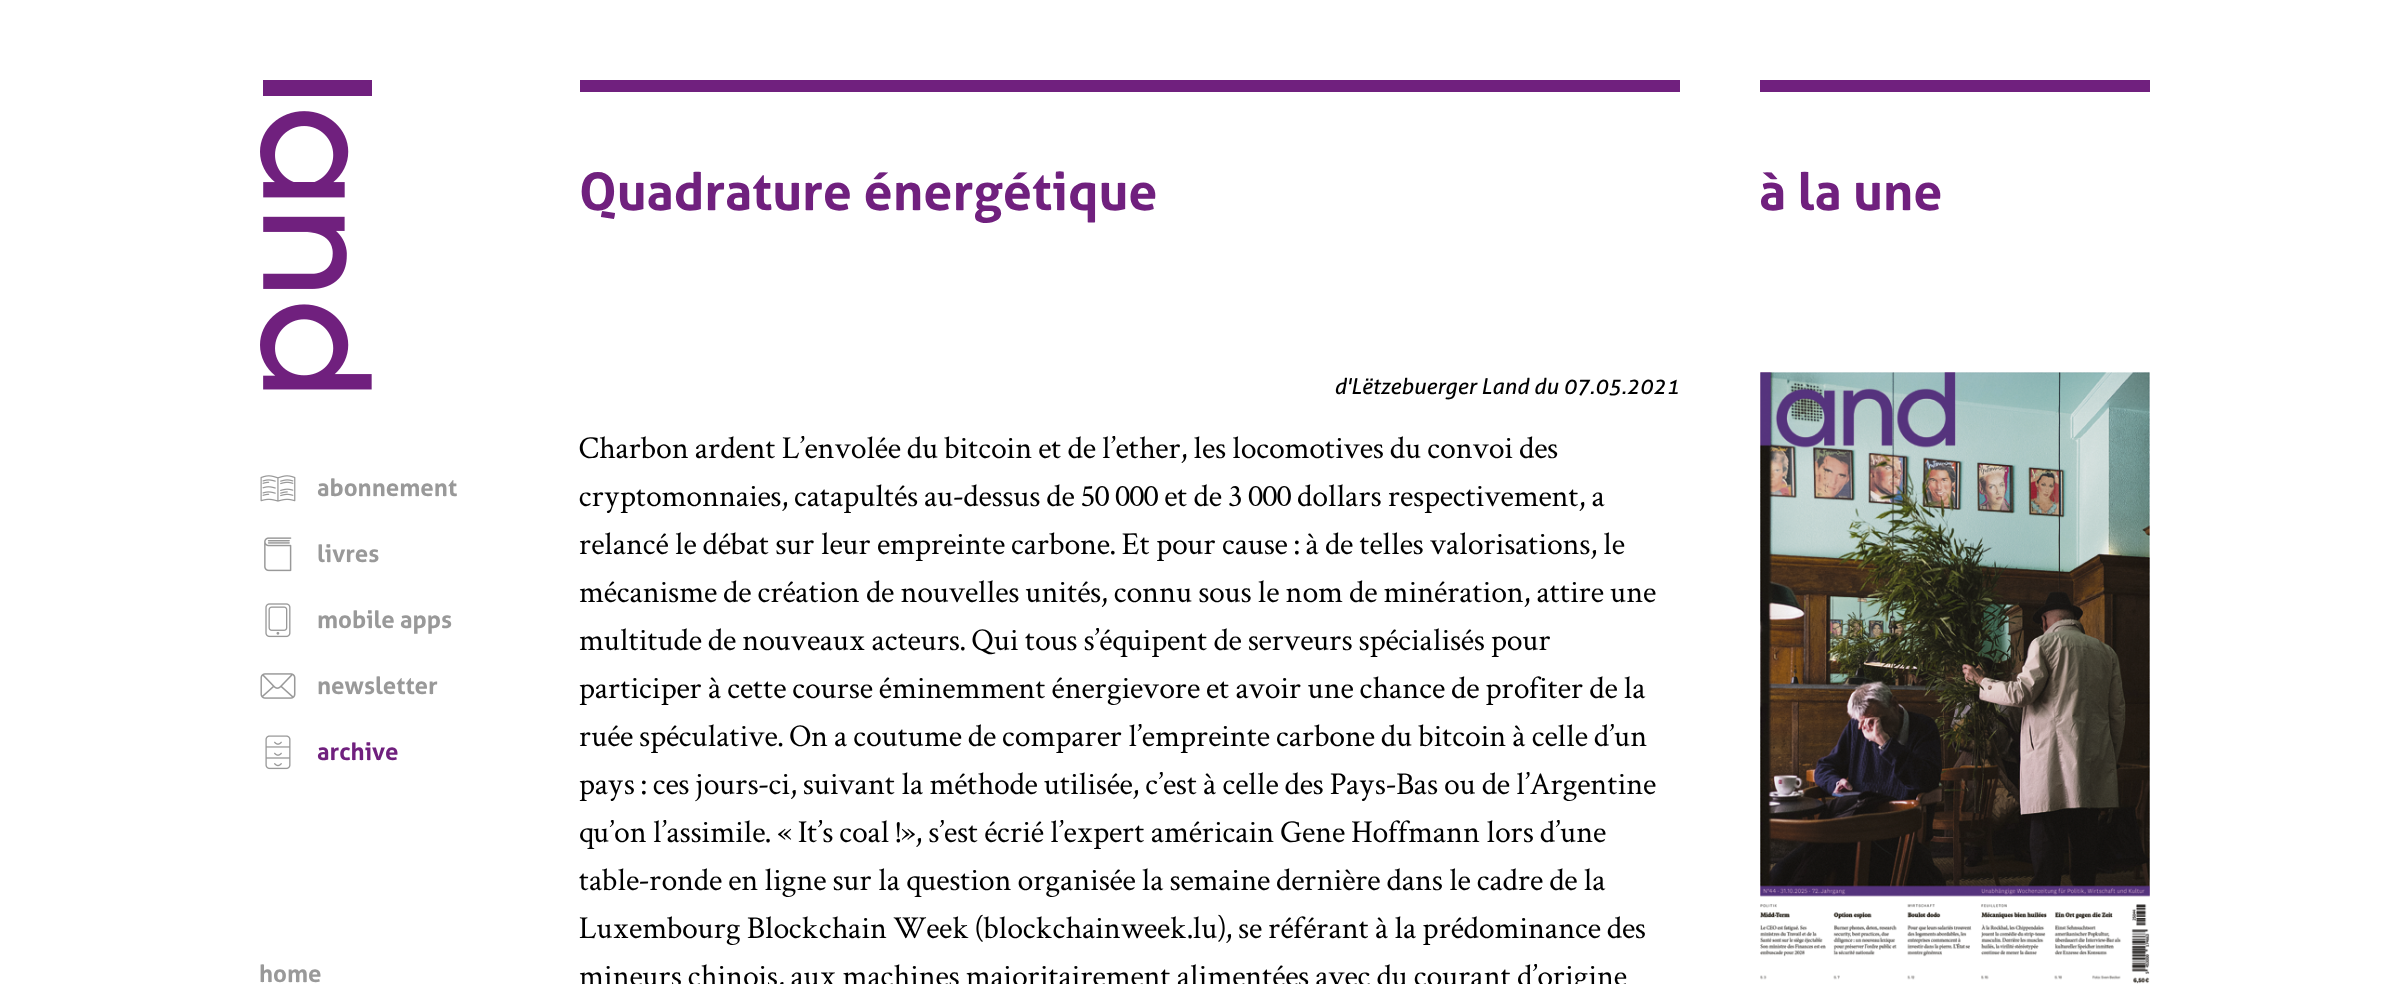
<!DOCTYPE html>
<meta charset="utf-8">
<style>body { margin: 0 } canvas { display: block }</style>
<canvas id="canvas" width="2408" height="984"></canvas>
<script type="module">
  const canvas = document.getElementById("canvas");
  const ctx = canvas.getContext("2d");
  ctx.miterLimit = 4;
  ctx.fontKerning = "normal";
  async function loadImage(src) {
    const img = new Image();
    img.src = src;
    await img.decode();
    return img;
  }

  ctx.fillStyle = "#ffffff";
  ctx.fillRect(0, 0, 2408, 984);
  ctx.drawImage(await loadImage("img1.png"), 260, 80, 112, 310);
  ctx.drawImage(await loadImage("img2.png"), 260, 475, 36, 27);
  ctx.font = "bold 24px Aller";
  ctx.fillStyle = "#999999";
  ctx.fillText("abonnement", 317, 496);
  ctx.drawImage(await loadImage("img3.png"), 264, 537, 28, 35);
  ctx.fillText("livres", 317, 562);
  ctx.drawImage(await loadImage("img4.png"), 265, 603, 26, 35);
  ctx.fillText("mobile apps", 317, 628);
  ctx.drawImage(await loadImage("img5.png"), 260, 673, 36, 26);
  ctx.fillText("newsletter", 317, 694);
  ctx.drawImage(await loadImage("img6.png"), 265, 735, 26, 35);
  ctx.fillStyle = "#70207e";
  ctx.fillText("archive", 317, 760);
  ctx.fillStyle = "#999999";
  ctx.fillText("home", 259, 982);
  ctx.fillStyle = "#70207e";
  ctx.fillRect(580, 80, 1100, 12);
  ctx.font = "bold 52px Aller";
  ctx.fillText("Quadrature énergétique", 579, 210);
  ctx.font = "italic 22px Aller";
  ctx.fillStyle = "#000000";
  ctx.fillText("d'Lëtzebuerger Land du 07.05.2021", 1334, 394);
  ctx.font = "32px Crimson Text";
  ctx.fillText("Charbon ardent L’envolée du bitcoin et de l’ether, les locomotives du convoi des", 579, 458);
  ctx.fillText("cryptomonnaies, catapultés au-dessus de 50 000 et de 3 000 dollars respectivement, a", 579, 506);
  ctx.fillText("relancé le débat sur leur empreinte carbone. Et pour cause : à de telles valorisations, le", 579, 554);
  ctx.fillText("mécanisme de création de nouvelles unités, connu sous le nom de minération, attire une", 579, 602);
  ctx.fillText("multitude de nouveaux acteurs. Qui tous s’équipent de serveurs spécialisés pour", 579, 650);
  ctx.fillText("participer à cette course éminemment énergievore et avoir une chance de profiter de la", 579, 698);
  ctx.fillText("ruée spéculative. On a coutume de comparer l’empreinte carbone du bitcoin à celle d’un", 579, 746);
  ctx.fillText("pays : ces jours-ci, suivant la méthode utilisée, c’est à celle des Pays-Bas ou de l’Argentine", 579, 794);
  ctx.fillText("qu’on l’assimile. « It’s coal !», s’est écrié l’expert américain Gene Hoffmann lors d’une", 579, 842);
  ctx.fillText("table-ronde en ligne sur la question organisée la semaine dernière dans le cadre de la", 579, 890);
  ctx.fillText("Luxembourg Blockchain Week (blockchainweek.lu), se référant à la prédominance des", 579, 938);
  ctx.fillText("mineurs chinois, aux machines majoritairement alimentées avec du courant d’origine", 579, 986);
  ctx.fillStyle = "#70207e";
  ctx.fillRect(1760, 80, 390, 12);
  ctx.font = "bold 52px Aller";
  ctx.fillText("à la une", 1759, 210);
  ctx.drawImage(await loadImage("img7.png"), 1760, 372, 390, 612);
</script>
